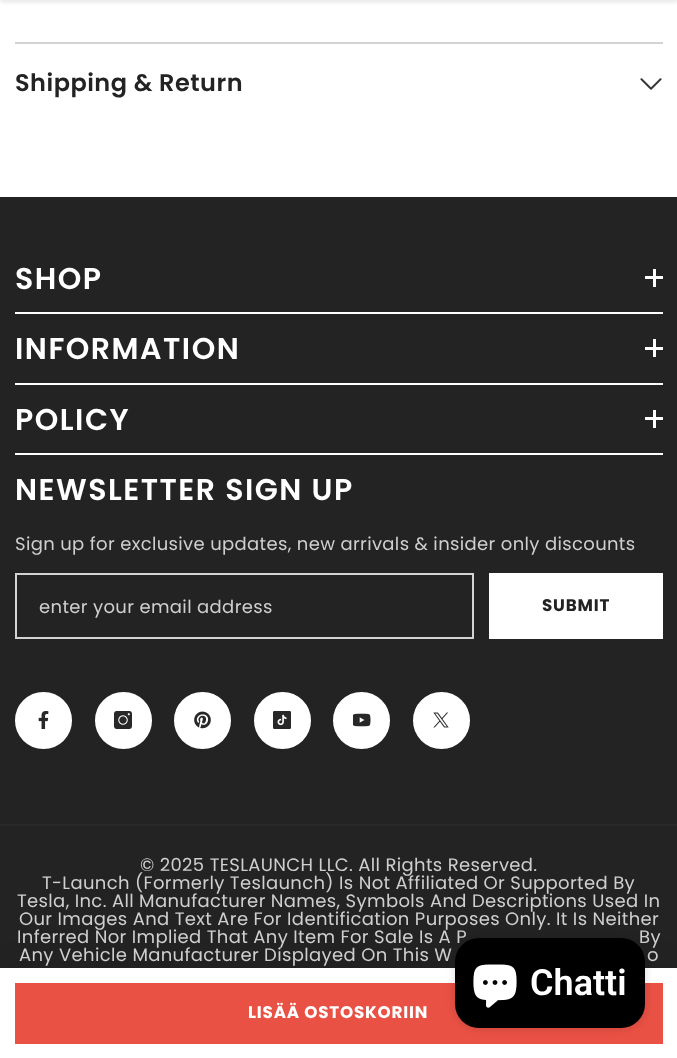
<!DOCTYPE html>
<meta charset="utf-8">
<style>body { margin: 0 } canvas { display: block }</style>
<canvas id="canvas" width="677" height="1058"></canvas>
<script type="module">
  const canvas = document.getElementById("canvas");
  const ctx = canvas.getContext("2d");
  ctx.miterLimit = 4;
  ctx.fontKerning = "normal";
  async function loadImage(src) {
    const img = new Image();
    img.src = src;
    await img.decode();
    return img;
  }

  ctx.fillStyle = "#ffffff";
  ctx.fillRect(0, 0, 677, 1058);
  ctx.fillStyle = "rgba(0, 0, 0, 0.1)";
  ctx.filter = "blur(2px)";
  ctx.beginPath();
  ctx.rect(0, -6, 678, 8);
  ctx.fill();
  ctx.filter = "none";
  ctx.fillStyle = "#d3d3d3";
  ctx.fillRect(15, 42, 648, 2);
  ctx.letterSpacing = "0.5px";
  ctx.font = "600 24px Poppins";
  ctx.fillStyle = "#232323";
  ctx.fillText("Shipping & Return", 15, 91);
  ctx.drawImage(await loadImage("img1.png"), 640, 78, 22, 12);
  ctx.fillRect(0, 826, 677, 142);
  ctx.fillStyle = "rgba(0, 0, 0, 0.1)";
  ctx.filter = "blur(15px)";
  ctx.beginPath();
  ctx.rect(0, 969, 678, 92);
  ctx.fill();
  ctx.filter = "none";
  ctx.fillStyle = "#ffffff";
  ctx.fillRect(0, 968, 677, 90);
  ctx.fillStyle = "#e95144";
  ctx.fillRect(15, 983, 648, 61);
  ctx.letterSpacing = "0.8px";
  ctx.font = "bold 16.75px Poppins";
  ctx.fillStyle = "#ffffff";
  ctx.fillText("LISÄÄ OSTOSKORIIN", 248, 1018);
  ctx.fillStyle = "#232323";
  ctx.fillRect(0, 197, 677, 627);
  ctx.fillStyle = "#ffffff";
  ctx.fillRect(15, 312, 648, 2);
  ctx.letterSpacing = "1.5px";
  ctx.font = "600 30px Poppins";
  ctx.fillText("SHOP", 15, 289);
  ctx.fillRect(653, 269, 3, 18);
  ctx.fillRect(645, 276, 18, 3);
  ctx.fillRect(15, 383, 648, 2);
  ctx.fillText("INFORMATION", 15, 359);
  ctx.fillRect(653, 339, 3, 18);
  ctx.fillRect(645, 347, 18, 3);
  ctx.fillRect(15, 453, 648, 2);
  ctx.fillText("POLICY", 15, 430);
  ctx.fillRect(653, 410, 3, 18);
  ctx.fillRect(645, 417, 18, 3);
  ctx.fillText("NEWSLETTER SIGN UP", 15, 500);
  ctx.letterSpacing = "0.35px";
  ctx.font = "18px Poppins";
  ctx.fillStyle = "#cfcfcf";
  ctx.fillText("Sign up for exclusive updates, new arrivals & insider only discounts", 15, 550);
  ctx.strokeStyle = "#d3d3d3";
  ctx.lineWidth = 2;
  ctx.strokeRect(16, 574, 457, 64);
  ctx.fillText("enter your email address", 39, 613);
  ctx.fillStyle = "#ffffff";
  ctx.fillRect(489, 573, 174, 66);
  ctx.letterSpacing = "0.8px";
  ctx.font = "bold 16.75px Poppins";
  ctx.fillStyle = "#232323";
  ctx.fillText("SUBMIT", 542, 611);
  ctx.fillStyle = "#ffffff";
  ctx.beginPath();
  ctx.arc(43.5, 720.5, 27.5, 0, Math.PI * 2);
  ctx.fill();
  ctx.strokeStyle = "#ffffff";
  ctx.stroke();
  ctx.drawImage(await loadImage("img2.png"), 38, 711, 11, 18);
  ctx.beginPath();
  ctx.arc(123.5, 720.5, 27.5, 0, Math.PI * 2);
  ctx.fill();
  ctx.stroke();
  ctx.drawImage(await loadImage("img3.png"), 114, 711, 18, 18);
  ctx.beginPath();
  ctx.arc(202.5, 720.5, 27.5, 0, Math.PI * 2);
  ctx.fill();
  ctx.stroke();
  ctx.drawImage(await loadImage("img4.png"), 194, 711, 17, 18);
  ctx.beginPath();
  ctx.arc(282.5, 720.5, 27.5, 0, Math.PI * 2);
  ctx.fill();
  ctx.stroke();
  ctx.drawImage(await loadImage("img5.png"), 273, 711, 18, 18);
  ctx.beginPath();
  ctx.arc(361.5, 720.5, 27.5, 0, Math.PI * 2);
  ctx.fill();
  ctx.stroke();
  ctx.drawImage(await loadImage("img6.png"), 353, 713, 18, 14);
  ctx.beginPath();
  ctx.arc(441.5, 720.5, 27.5, 0, Math.PI * 2);
  ctx.fill();
  ctx.stroke();
  ctx.drawImage(await loadImage("img7.png"), 433, 712, 16, 16);
  ctx.fillStyle = "#282828";
  ctx.fillRect(0, 824, 677, 2);
  ctx.letterSpacing = "0.35px";
  ctx.font = "18px Poppins";
  ctx.fillStyle = "#cfcfcf";
  ctx.fillText("© 2025 TESLAUNCH LLC. All Rights Reserved.", 140, 871);
  ctx.fillText("T-Launch (Formerly Teslaunch) Is Not Affiliated Or Supported By", 42, 889);
  ctx.fillText("Tesla, Inc. All Manufacturer Names, Symbols And Descriptions Used In", 17, 907);
  ctx.fillText("Our Images And Text Are For Identification Purposes Only. It Is Neither", 19, 925);
  ctx.fillText("Inferred Nor Implied That Any Item For Sale Is A P", 17, 943);
  ctx.fillText("By", 639, 943);
  ctx.fillText("Any Vehicle Manufacturer Displayed On This W", 19, 961);
  ctx.fillText("o", 647, 961);
  ctx.fillStyle = "rgba(0, 0, 0, 0.15)";
  ctx.filter = "blur(4px)";
  ctx.beginPath();
  ctx.roundRect(455, 938, 190, 90, 24);
  ctx.fill();
  ctx.filter = "none";
  ctx.fillStyle = "#000000";
  ctx.beginPath();
  ctx.roundRect(455, 938, 190, 90, 24);
  ctx.fill();
  ctx.drawImage(await loadImage("img8.png"), 473, 964, 44, 44);
  ctx.letterSpacing = "0px";
  ctx.font = "600 36px Roboto";
  ctx.fillStyle = "#ffffff";
  ctx.fillText("Chatti", 530, 995);
</script>
